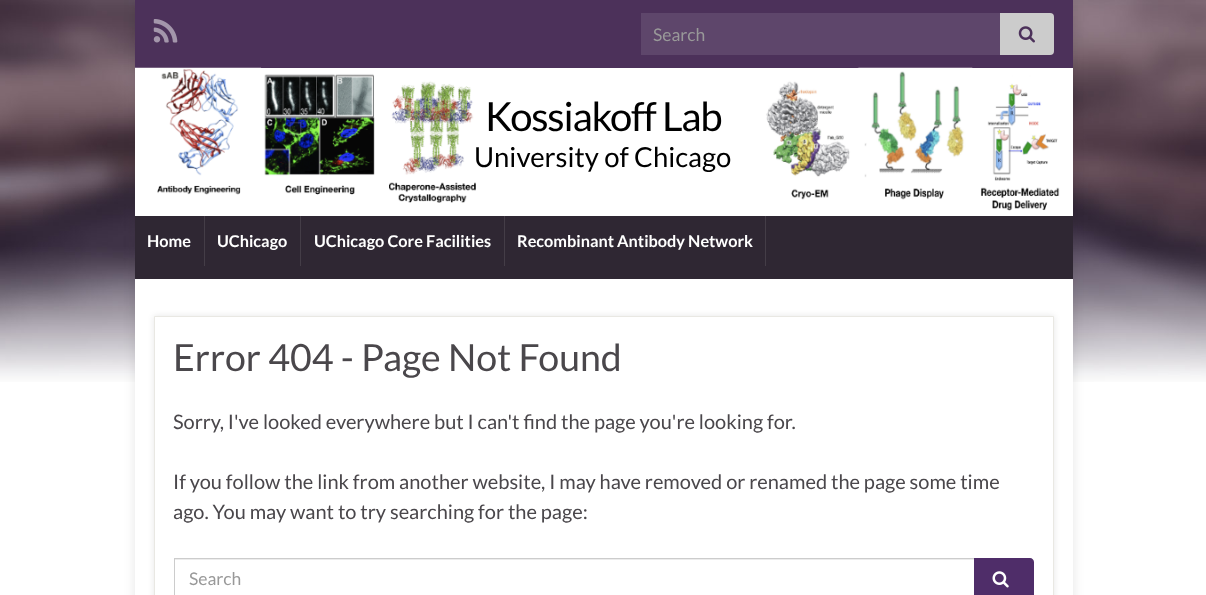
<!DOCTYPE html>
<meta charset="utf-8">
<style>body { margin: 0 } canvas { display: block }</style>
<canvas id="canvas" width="1206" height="595"></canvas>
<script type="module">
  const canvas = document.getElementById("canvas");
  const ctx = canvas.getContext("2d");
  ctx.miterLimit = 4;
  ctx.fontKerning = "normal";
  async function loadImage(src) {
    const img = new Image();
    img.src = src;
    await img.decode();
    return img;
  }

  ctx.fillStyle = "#ffffff";
  ctx.fillRect(0, 0, 1206, 595);
  ctx.drawImage(await loadImage("img1.png"), 0, 0, 1206, 382);
  ctx.fillStyle = "rgba(0, 0, 0, 0.1)";
  ctx.filter = "blur(6px)";
  ctx.beginPath();
  ctx.rect(135, 0, 938, 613);
  ctx.fill();
  ctx.filter = "none";
  ctx.fillStyle = "#4c315a";
  ctx.fillRect(135, 0, 938, 68);
  ctx.drawImage(await loadImage("img2.png"), 153, 19, 25, 24);
  ctx.fillStyle = "#5e466b";
  ctx.fillRect(641, 13, 359, 42);
  ctx.font = "17.5px Lato";
  ctx.fillStyle = "#999999";
  ctx.fillText("Search", 653, 41);
  ctx.fillStyle = "#cccccc";
  ctx.beginPath();
  ctx.roundRect(1000, 13, 54, 42, [0, 4, 4, 0]);
  ctx.fill();
  ctx.drawImage(await loadImage("img3.png"), 1018, 26, 17, 17);
  ctx.fillStyle = "#ffffff";
  ctx.fillRect(135, 68, 938, 148);
  ctx.drawImage(await loadImage("img4.png"), 135, 67, 937, 149);
  ctx.fillStyle = "#2f2733";
  ctx.fillRect(135, 216, 938, 63);
  ctx.letterSpacing = "-1.25px";
  ctx.font = "40px Lato";
  ctx.fillStyle = "#000000";
  ctx.fillText("Kossiakoff Lab", 485, 131);
  ctx.letterSpacing = "0px";
  ctx.font = "27.5px Lato";
  ctx.fillText("University of Chicago", 474, 167);
  ctx.fillStyle = "#443d47";
  ctx.fillRect(204, 216, 1, 50);
  ctx.font = "bold 16.25px Lato";
  ctx.fillStyle = "#ffffff";
  ctx.fillText("Home", 147, 247);
  ctx.fillStyle = "#443d47";
  ctx.fillRect(300, 216, 1, 50);
  ctx.fillStyle = "#ffffff";
  ctx.fillText("UChicago", 217, 247);
  ctx.fillStyle = "#443d47";
  ctx.fillRect(504, 216, 1, 50);
  ctx.fillStyle = "#ffffff";
  ctx.fillText("UChicago Core Facilities", 314, 247);
  ctx.fillStyle = "#443d47";
  ctx.fillRect(765, 216, 1, 50);
  ctx.fillStyle = "#ffffff";
  ctx.fillText("Recombinant Antibody Network", 517, 247);
  ctx.fillRect(135, 279, 938, 316);
  ctx.fillStyle = "rgba(0, 0, 0, 0.1)";
  ctx.filter = "blur(3px)";
  ctx.beginPath();
  ctx.rect(154, 316, 900, 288);
  ctx.fill();
  ctx.filter = "none";
  ctx.fillStyle = "#ffffff";
  ctx.beginPath();
  ctx.rect(154.5, 316.5, 899, 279);
  ctx.fill();
  ctx.strokeStyle = "#e9e8e3";
  ctx.stroke();
  ctx.font = "37.5px Lato";
  ctx.fillStyle = "#4a474b";
  ctx.fillText("Error 404 - Page Not Found", 173, 371);
  ctx.font = "20px Lato";
  ctx.fillText("Sorry, I've looked everywhere but I can't find the page you're looking for.", 173, 429);
  ctx.fillText("If you follow the link from another website, I may have removed or renamed the page some time", 173, 489);
  ctx.fillText("ago. You may want to try searching for the page:", 173, 519);
  ctx.fillStyle = "#ececec";
  ctx.fillRect(175, 559, 799, 1);
  ctx.strokeStyle = "#cccccc";
  ctx.strokeRect(174.5, 558.5, 800, 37);
  ctx.font = "17.5px Lato";
  ctx.fillStyle = "#999999";
  ctx.fillText("Search", 189, 585);
  ctx.fillStyle = "#4f2d69";
  ctx.beginPath();
  ctx.moveTo(974, 558);
  ctx.lineTo(1030, 558);
  ctx.bezierCurveTo(1032, 558, 1034, 560, 1034, 562);
  ctx.lineTo(1034, 595);
  ctx.bezierCurveTo(1034, 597, 1032, 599, 1030, 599);
  ctx.lineTo(974, 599);
  ctx.closePath();
  ctx.fill();
  ctx.drawImage(await loadImage("img5.png"), 992, 571, 17, 17);
</script>
